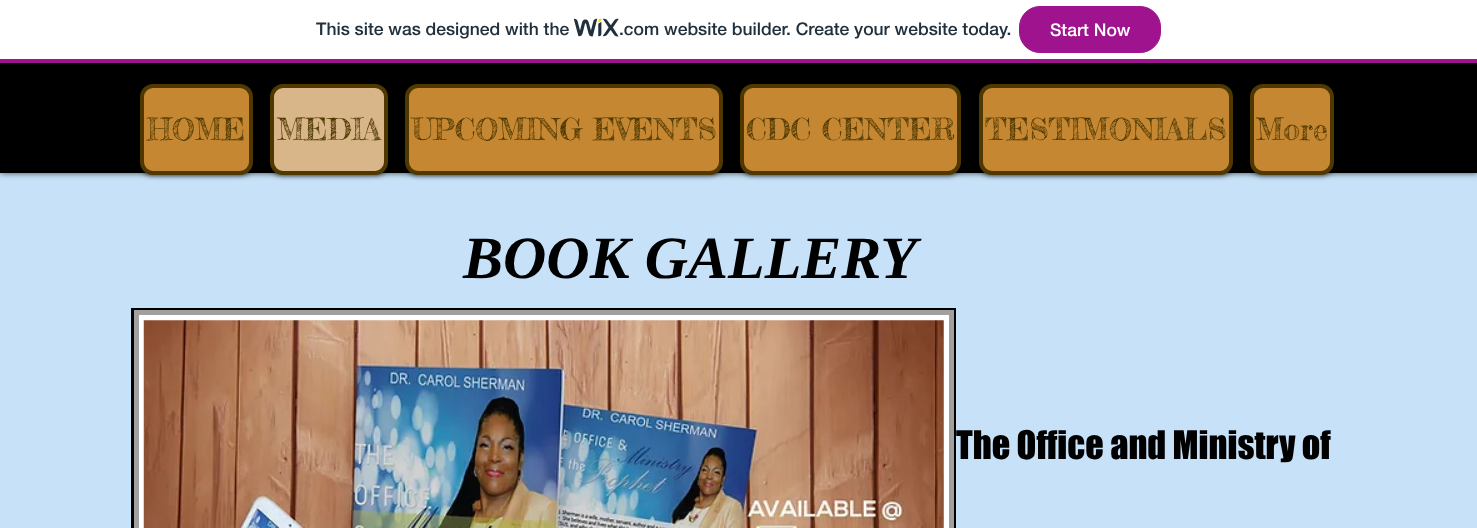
<!DOCTYPE html>
<meta charset="utf-8">
<style>body { margin: 0 } canvas { display: block }</style>
<canvas id="canvas" width="1477" height="528"></canvas>
<script type="module">
  const canvas = document.getElementById("canvas");
  const ctx = canvas.getContext("2d");
  ctx.miterLimit = 4;
  ctx.fontKerning = "normal";
  async function loadImage(src) {
    const img = new Image();
    img.src = src;
    await img.decode();
    return img;
  }

  ctx.fillStyle = "#c7e2f8";
  ctx.fillRect(0, 0, 1477, 528);
  ctx.fillStyle = "rgba(0, 0, 0, 0.7)";
  ctx.filter = "blur(3px)";
  ctx.beginPath();
  ctx.rect(0, -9, 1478, 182);
  ctx.fill();
  ctx.filter = "none";
  ctx.fillStyle = "#ffffff";
  ctx.fillRect(0, 0, 1477, 59);
  ctx.fillStyle = "#a0138e";
  ctx.fillRect(0, 59, 1477, 4);
  ctx.font = "500 17.5px 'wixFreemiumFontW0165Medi'";
  ctx.fillStyle = "#20303c";
  ctx.fillText("This site was designed with the", 316, 35);
  ctx.drawImage(await loadImage("img1.png"), 574, 18, 45, 19);
  ctx.fillText(".com website builder. Create your website today.", 619, 35);
  ctx.fillStyle = "#a0138e";
  ctx.beginPath();
  ctx.roundRect(1019.5, 6.5, 141, 46, 20.5);
  ctx.fill();
  ctx.strokeStyle = "#a0138e";
  ctx.stroke();
  ctx.fillStyle = "#ffffff";
  ctx.fillText("Start Now", 1050, 36);
  ctx.fillStyle = "#000000";
  ctx.fillRect(0, 63, 1477, 110);
  ctx.fillStyle = "rgba(0, 0, 0, 0.6)";
  ctx.filter = "blur(2.5px)";
  ctx.beginPath();
  ctx.roundRect(140, 85, 113, 91, 13);
  ctx.fill();
  ctx.filter = "none";
  ctx.fillStyle = "#c68733";
  ctx.beginPath();
  ctx.roundRect(142, 86, 109, 87, 11);
  ctx.fill();
  ctx.strokeStyle = "#4f3900";
  ctx.lineWidth = 4;
  ctx.stroke();
  ctx.font = "30px Fredericka the Great";
  ctx.fillStyle = "#4f3900";
  ctx.fillText("HOME", 147, 140);
  ctx.fillStyle = "rgba(0, 0, 0, 0.6)";
  ctx.filter = "blur(2.5px)";
  ctx.beginPath();
  ctx.roundRect(270, 85, 118, 91, 13);
  ctx.fill();
  ctx.filter = "none";
  ctx.fillStyle = "#d9b689";
  ctx.beginPath();
  ctx.roundRect(272, 86, 114, 87, 11);
  ctx.fill();
  ctx.stroke();
  ctx.fillStyle = "#4f3900";
  ctx.fillText("MEDIA", 277, 140);
  ctx.fillStyle = "rgba(0, 0, 0, 0.6)";
  ctx.filter = "blur(2.5px)";
  ctx.beginPath();
  ctx.roundRect(405, 85, 318, 91, 13);
  ctx.fill();
  ctx.filter = "none";
  ctx.fillStyle = "#c68733";
  ctx.beginPath();
  ctx.roundRect(407, 86, 314, 87, 11);
  ctx.fill();
  ctx.stroke();
  ctx.fillStyle = "#4f3900";
  ctx.fillText("UPCOMING EVENTS", 412, 140);
  ctx.fillStyle = "rgba(0, 0, 0, 0.6)";
  ctx.filter = "blur(2.5px)";
  ctx.beginPath();
  ctx.roundRect(740, 85, 221, 91, 13);
  ctx.fill();
  ctx.filter = "none";
  ctx.fillStyle = "#c68733";
  ctx.beginPath();
  ctx.roundRect(742, 86, 217, 87, 11);
  ctx.fill();
  ctx.stroke();
  ctx.fillStyle = "#4f3900";
  ctx.fillText("CDC CENTER", 746, 140);
  ctx.fillStyle = "rgba(0, 0, 0, 0.6)";
  ctx.filter = "blur(2.5px)";
  ctx.beginPath();
  ctx.roundRect(979, 85, 254, 91, 13);
  ctx.fill();
  ctx.filter = "none";
  ctx.fillStyle = "#c68733";
  ctx.beginPath();
  ctx.roundRect(981, 86, 250, 87, 11);
  ctx.fill();
  ctx.stroke();
  ctx.fillStyle = "#4f3900";
  ctx.fillText("TESTIMONIALS", 985, 140);
  ctx.fillStyle = "rgba(0, 0, 0, 0.6)";
  ctx.filter = "blur(2.5px)";
  ctx.beginPath();
  ctx.roundRect(1250, 85, 84, 91, 13);
  ctx.fill();
  ctx.filter = "none";
  ctx.fillStyle = "#c68733";
  ctx.beginPath();
  ctx.roundRect(1252, 86, 80, 87, 11);
  ctx.fill();
  ctx.stroke();
  ctx.fillStyle = "#4f3900";
  ctx.fillText("More", 1256, 140);
  ctx.font = "italic bold 60px Liberation Serif";
  ctx.fillStyle = "#000000";
  ctx.fillText("BOOK GALLERY", 463, 278);
  ctx.fillStyle = "#ffffff";
  ctx.fillRect(139, 315, 810, 213);
  ctx.strokeStyle = "#000000";
  ctx.lineWidth = 3;
  ctx.strokeRect(132.5, 309.5, 822, 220);
  ctx.drawImage(await loadImage("img2.png"), 143, 320, 801, 208);
  ctx.strokeStyle = "#a0a09f";
  ctx.lineWidth = 5;
  ctx.strokeRect(136.5, 312.5, 815, 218);
  ctx.font = "36.25px 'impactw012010'";
  ctx.fillStyle = "#000000";
  ctx.fillText("The Office and Ministry of", 956, 459);
</script>
